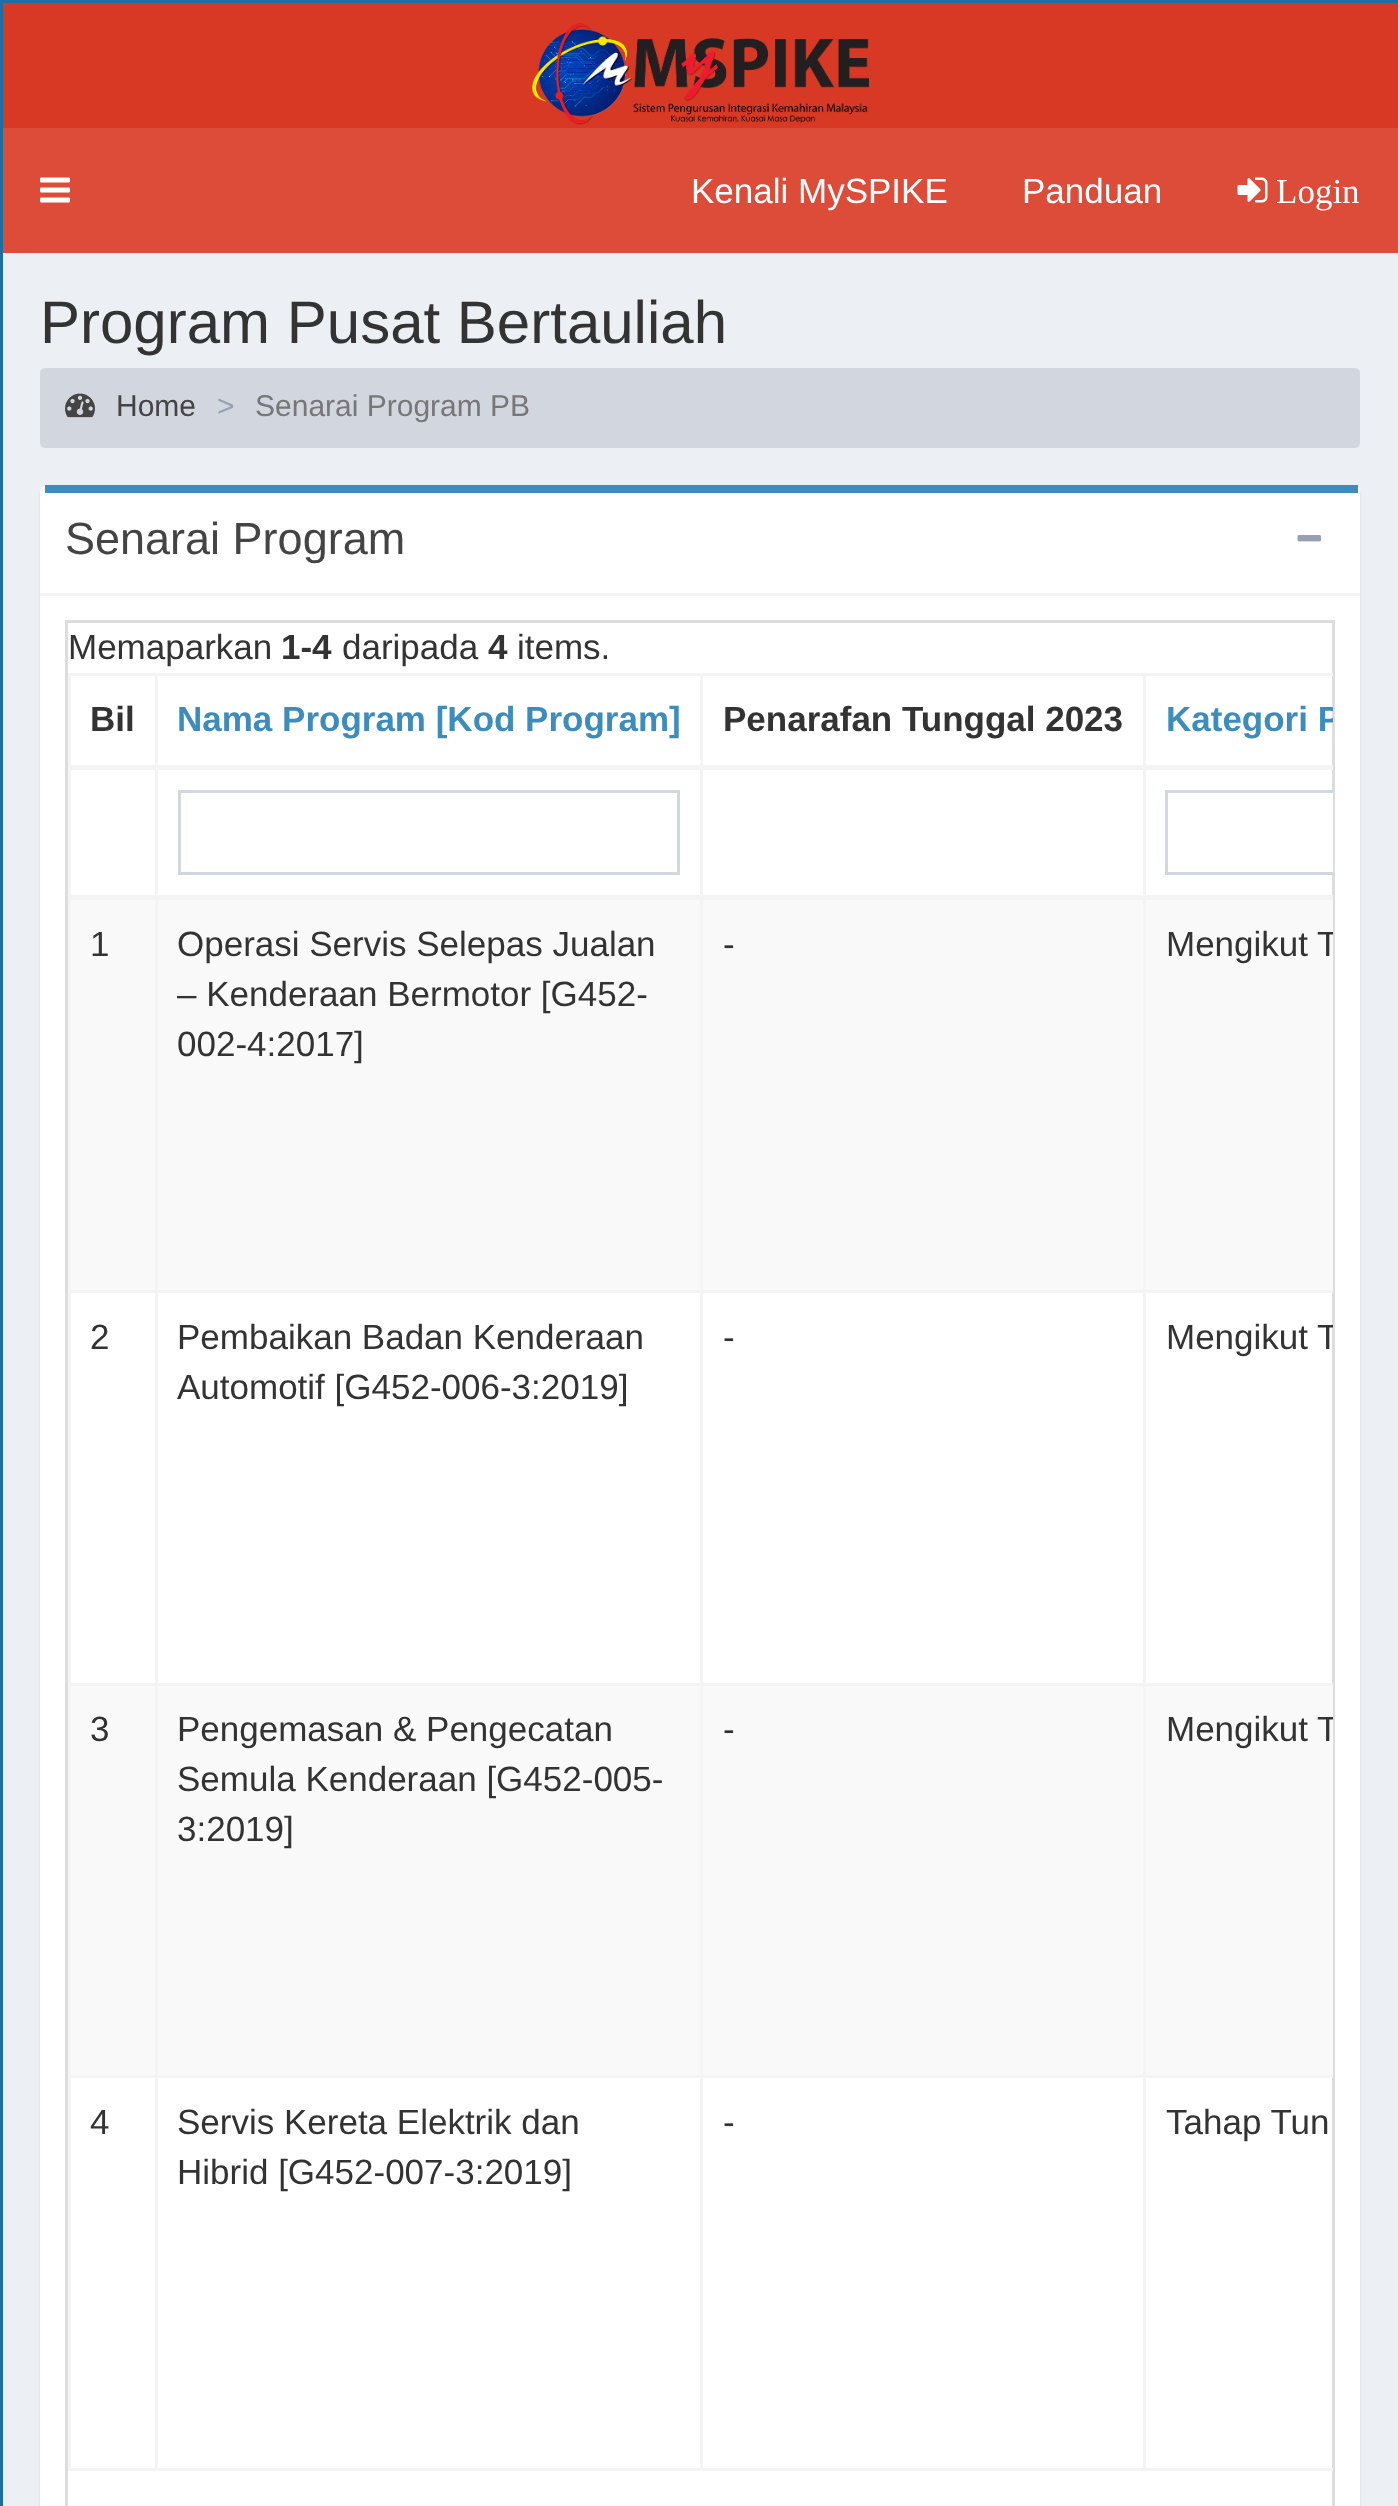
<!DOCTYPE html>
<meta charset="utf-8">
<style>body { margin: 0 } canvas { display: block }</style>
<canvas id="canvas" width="1398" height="2506"></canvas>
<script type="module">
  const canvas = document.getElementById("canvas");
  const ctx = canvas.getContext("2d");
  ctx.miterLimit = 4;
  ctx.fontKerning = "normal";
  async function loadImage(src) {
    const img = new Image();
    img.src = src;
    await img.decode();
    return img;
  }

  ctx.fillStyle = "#ffffff";
  ctx.fillRect(0, 0, 1398, 2506);
  ctx.strokeStyle = "#1c6ea4";
  ctx.lineWidth = 3;
  ctx.strokeRect(1.5, 1.5, 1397, 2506);
  ctx.fillStyle = "#d73925";
  ctx.fillRect(3, 3, 1395, 125);
  ctx.drawImage(await loadImage("img1.png"), 531, 23, 338, 102);
  ctx.fillStyle = "#dd4b39";
  ctx.fillRect(3, 128, 1395, 125);
  ctx.drawImage(await loadImage("img2.png"), 40, 177, 30, 26);
  ctx.font = "35px Liberation Sans";
  ctx.fillStyle = "#ffffff";
  ctx.fillText("Kenali MySPIKE", 691, 203);
  ctx.fillText("Panduan", 1022, 203);
  ctx.drawImage(await loadImage("img3.png"), 1237, 177, 31, 26);
  ctx.font = "35px Liberation Serif";
  ctx.fillText("Login", 1276, 203);
  ctx.fillStyle = "#ecf0f5";
  ctx.fillRect(3, 253, 1395, 2253);
  ctx.font = "60px Liberation Sans";
  ctx.fillStyle = "#333333";
  ctx.fillText("Program Pusat Bertauliah", 40, 343);
  ctx.fillStyle = "#d2d6de";
  ctx.beginPath();
  ctx.roundRect(40, 368, 1320, 80, 5);
  ctx.fill();
  ctx.drawImage(await loadImage("img4.png"), 65, 393, 30, 25);
  ctx.font = "30px Liberation Sans";
  ctx.fillStyle = "#444444";
  ctx.fillText("Home", 116, 416);
  ctx.fillStyle = "#97a0b3";
  ctx.fillText(">", 217, 416);
  ctx.fillStyle = "#777777";
  ctx.fillText("Senarai Program PB", 255, 416);
  ctx.fillStyle = "rgba(0, 0, 0, 0.1)";
  ctx.filter = "blur(1px)";
  ctx.beginPath();
  ctx.roundRect(40, 488, 1320, 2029, 8);
  ctx.fill();
  ctx.filter = "none";
  ctx.fillStyle = "#ffffff";
  ctx.beginPath();
  ctx.roundRect(40, 485, 1320, 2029, 8);
  ctx.fill();
  ctx.fillStyle = "#3c8dbc";
  ctx.fillRect(45, 485, 1313, 8);
  ctx.fillStyle = "#f4f4f4";
  ctx.fillRect(40, 593, 1320, 3);
  ctx.font = "45px Liberation Sans";
  ctx.fillStyle = "#444444";
  ctx.fillText("Senarai Program", 65, 554);
  ctx.drawImage(await loadImage("img5.png"), 1297, 535, 25, 7);
  ctx.strokeStyle = "#dddddd";
  ctx.strokeRect(66.5, 621.5, 1267, 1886);
  ctx.font = "35px Liberation Sans";
  ctx.fillStyle = "#333333";
  ctx.fillText("Memaparkan", 68, 659);
  ctx.font = "bold 35px Liberation Sans";
  ctx.fillText("1-4", 281, 659);
  ctx.font = "35px Liberation Sans";
  ctx.fillText("daripada", 342, 659);
  ctx.font = "bold 35px Liberation Sans";
  ctx.fillText("4", 488, 659);
  ctx.font = "35px Liberation Sans";
  ctx.fillText("items.", 517, 659);
  ctx.fillStyle = "#f4f4f4";
  ctx.fillRect(68, 673, 1265, 3);
  ctx.fillRect(68, 2468, 1265, 3);
  ctx.fillRect(68, 673, 3, 1797);
  ctx.font = "bold 35px Liberation Sans";
  ctx.fillStyle = "#333333";
  ctx.fillText("Bil", 90, 731);
  ctx.fillStyle = "#3c8dbc";
  ctx.fillText("Nama Program [Kod Program]", 177, 731);
  ctx.fillStyle = "#333333";
  ctx.fillText("Penarafan Tunggal 2023", 723, 731);
  ctx.fillStyle = "#f9f9f9";
  ctx.fillRect(71, 900, 1262, 390);
  ctx.fillStyle = "#f4f4f4";
  ctx.fillRect(1143, 1290, 190, 3);
  ctx.fillRect(1143, 1683, 190, 3);
  ctx.fillStyle = "#f9f9f9";
  ctx.fillRect(71, 1686, 1262, 389);
  ctx.fillStyle = "#f4f4f4";
  ctx.fillRect(1143, 2075, 190, 3);
  ctx.fillRect(1143, 2075, 3, 395);
  ctx.fillRect(700, 2075, 445, 3);
  ctx.fillRect(1143, 1683, 3, 395);
  ctx.fillRect(700, 1683, 445, 3);
  ctx.fillRect(1143, 1290, 3, 395);
  ctx.fillRect(700, 1290, 445, 3);
  ctx.fillRect(700, 2075, 3, 395);
  ctx.fillRect(155, 2075, 548, 3);
  ctx.fillRect(700, 1683, 3, 395);
  ctx.fillRect(155, 1683, 548, 3);
  ctx.fillRect(700, 1290, 3, 395);
  ctx.fillRect(155, 1290, 548, 3);
  ctx.fillRect(155, 2075, 3, 395);
  ctx.fillRect(68, 2075, 90, 3);
  ctx.fillRect(155, 1683, 3, 395);
  ctx.fillRect(68, 1683, 90, 3);
  ctx.fillRect(155, 1290, 3, 395);
  ctx.fillRect(68, 1290, 90, 3);
  ctx.fillRect(155, 673, 3, 620);
  ctx.fillRect(700, 673, 3, 620);
  ctx.fillRect(1143, 673, 3, 620);
  ctx.fillRect(68, 765, 1265, 5);
  ctx.save();
  ctx.beginPath();
  ctx.rect(68, 623, 1265, 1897);
  ctx.clip();
  ctx.fillStyle = "#3c8dbc";
  ctx.fillText("Kategori P", 1166, 731);
  ctx.restore();
  ctx.fillRect(68, 895, 1265, 5);
  ctx.fillStyle = "#ffffff";
  ctx.fillRect(1332, 793, 1, 79);
  ctx.save();
  ctx.beginPath();
  ctx.rect(68, 623, 1265, 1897);
  ctx.clip();
  ctx.strokeStyle = "#d2d6de";
  ctx.strokeRect(1166.5, 791.5, 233, 82);
  ctx.restore();
  ctx.strokeStyle = "#d2d6de";
  ctx.strokeRect(179.5, 791.5, 499, 82);
  ctx.font = "35px Liberation Sans";
  ctx.fillStyle = "#333333";
  ctx.fillText("1", 90, 956);
  ctx.fillText("Operasi Servis Selepas Jualan", 177, 956);
  ctx.fillText("– Kenderaan Bermotor [G452-", 177, 1006);
  ctx.fillText("002-4:2017]", 177, 1056);
  ctx.fillText("-", 723, 956);
  ctx.save();
  ctx.beginPath();
  ctx.rect(68, 623, 1265, 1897);
  ctx.clip();
  ctx.fillText("Mengikut T", 1166, 956);
  ctx.restore();
  ctx.fillText("2", 90, 1349);
  ctx.fillText("Pembaikan Badan Kenderaan", 177, 1349);
  ctx.fillText("Automotif [G452-006-3:2019]", 177, 1399);
  ctx.fillText("-", 723, 1349);
  ctx.save();
  ctx.beginPath();
  ctx.rect(68, 623, 1265, 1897);
  ctx.clip();
  ctx.fillText("Mengikut T", 1166, 1349);
  ctx.restore();
  ctx.fillText("3", 90, 1741);
  ctx.fillText("Pengemasan & Pengecatan", 177, 1741);
  ctx.fillText("Semula Kenderaan [G452-005-", 177, 1791);
  ctx.fillText("3:2019]", 177, 1841);
  ctx.fillText("-", 723, 1741);
  ctx.save();
  ctx.beginPath();
  ctx.rect(68, 623, 1265, 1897);
  ctx.clip();
  ctx.fillText("Mengikut T", 1166, 1741);
  ctx.restore();
  ctx.fillText("4", 90, 2134);
  ctx.fillText("Servis Kereta Elektrik dan", 177, 2134);
  ctx.fillText("Hibrid [G452-007-3:2019]", 177, 2184);
  ctx.fillText("-", 723, 2134);
  ctx.fillText("Tahap Tun", 1166, 2134);
</script>
